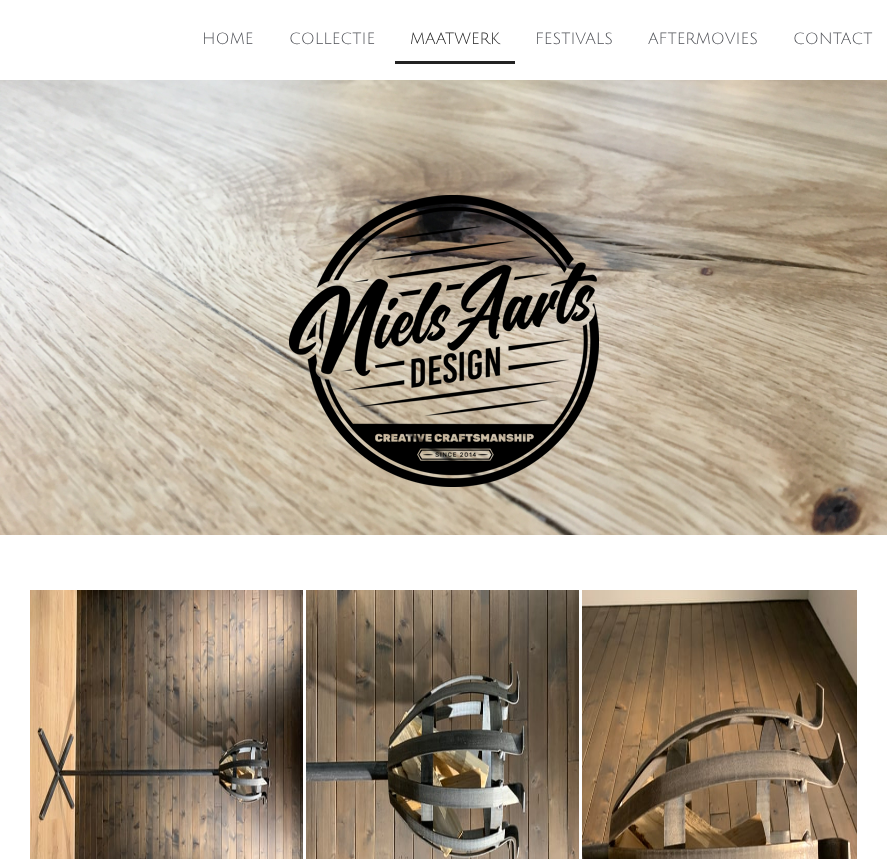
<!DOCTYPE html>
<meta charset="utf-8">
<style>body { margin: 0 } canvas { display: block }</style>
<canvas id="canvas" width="887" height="859"></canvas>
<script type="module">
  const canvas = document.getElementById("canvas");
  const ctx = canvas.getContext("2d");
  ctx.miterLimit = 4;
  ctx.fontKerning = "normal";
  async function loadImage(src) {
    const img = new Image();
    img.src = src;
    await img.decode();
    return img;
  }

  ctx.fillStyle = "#ffffff";
  ctx.fillRect(0, 0, 887, 859);
  ctx.font = "16px Julius Sans One";
  ctx.fillStyle = "#4e5056";
  ctx.fillText("HOME", 202, 44);
  ctx.fillText("COLLECTIE", 289, 44);
  ctx.fillStyle = "#222222";
  ctx.fillRect(395, 61, 120, 3);
  ctx.fillText("MAATWERK", 410, 44);
  ctx.fillStyle = "#4e5056";
  ctx.fillText("FESTIVALS", 535, 44);
  ctx.fillText("AFTERMOVIES", 648, 44);
  ctx.fillText("CONTACT", 793, 44);
  ctx.drawImage(await loadImage("img1.png"), 0, 80, 887, 455);
  ctx.drawImage(await loadImage("img2.png"), 289, 195, 310, 292);
  ctx.drawImage(await loadImage("img3.png"), 30, 590, 273, 269);
  ctx.drawImage(await loadImage("img4.png"), 306, 590, 273, 269);
  ctx.drawImage(await loadImage("img5.png"), 582, 590, 275, 269);
</script>
